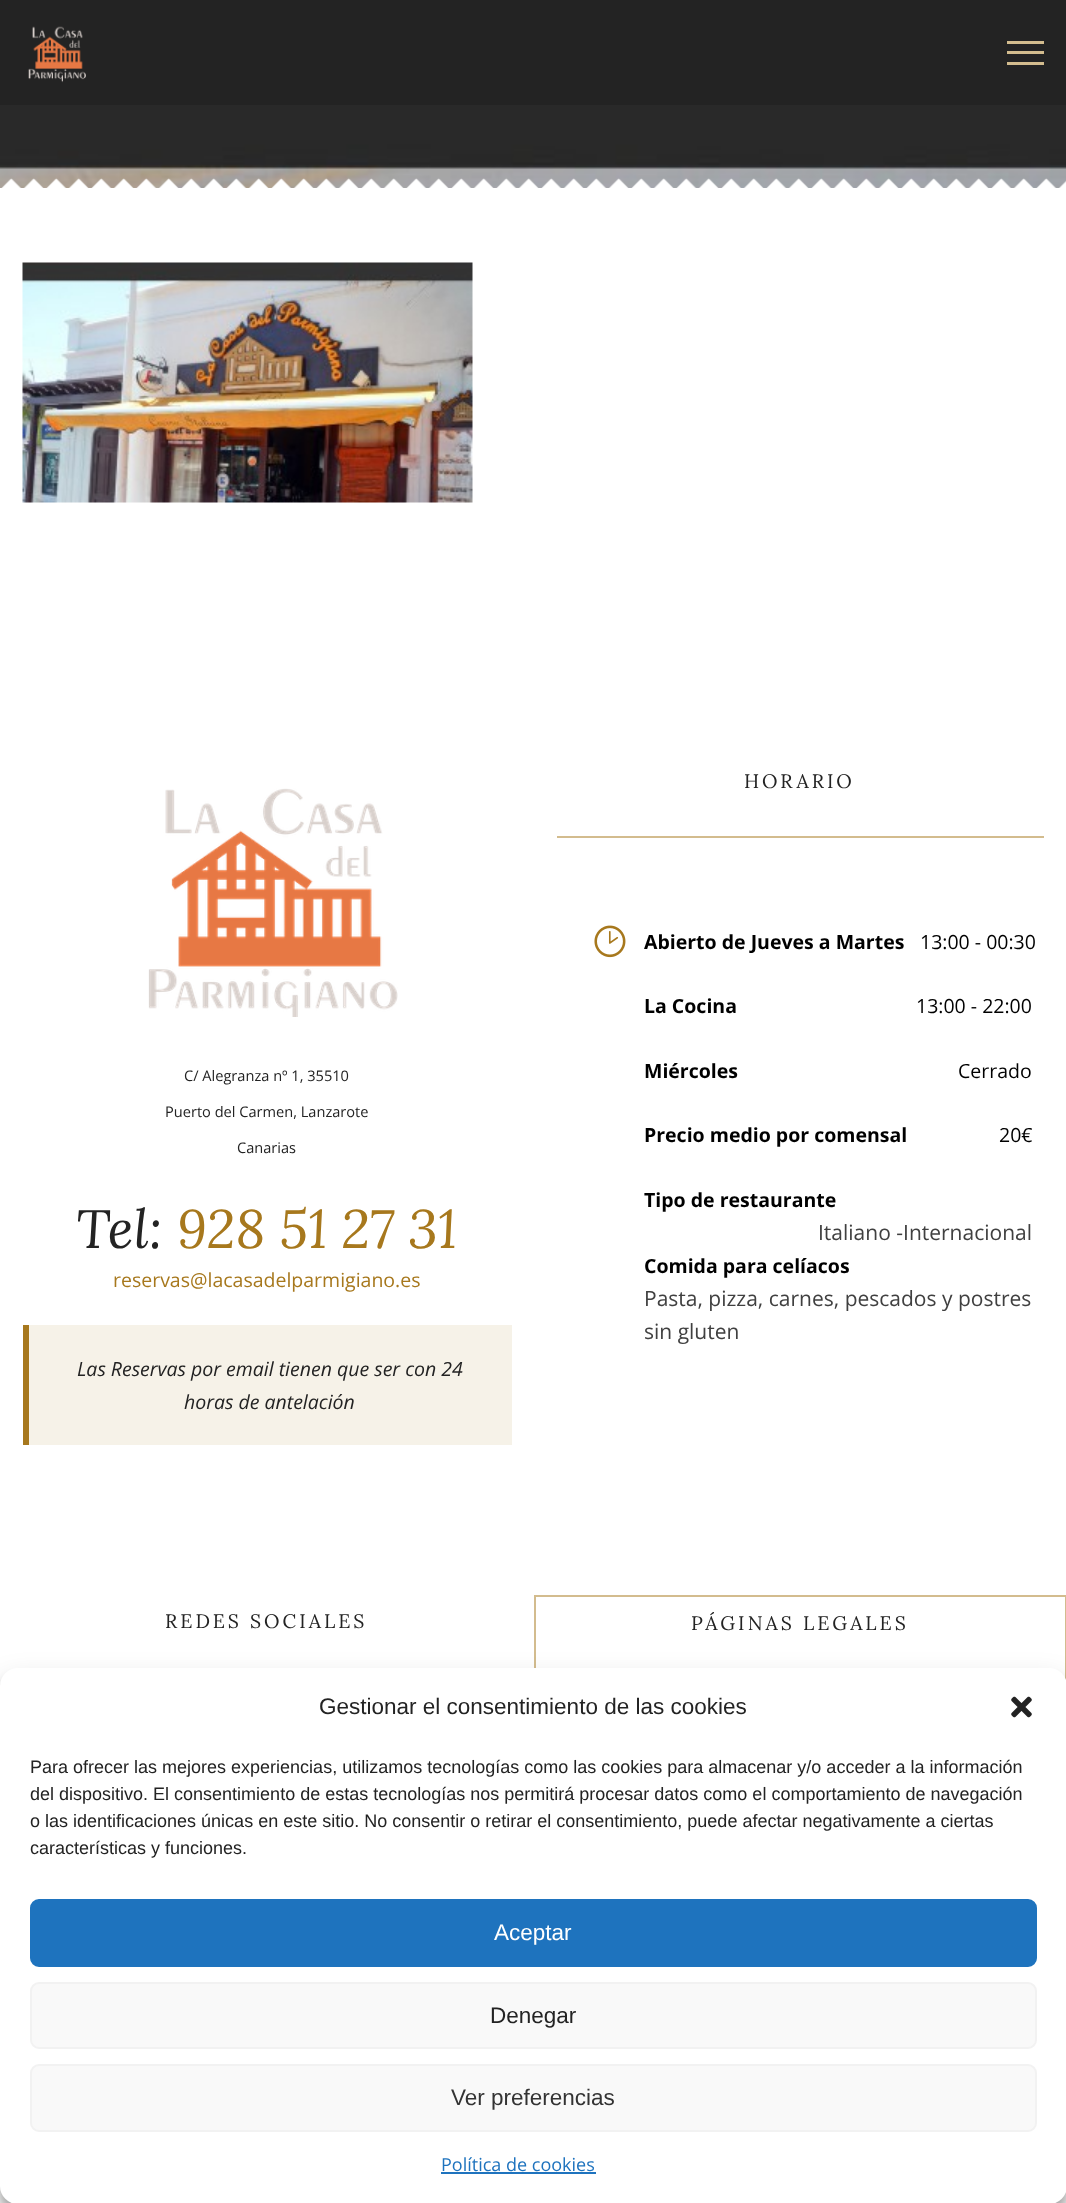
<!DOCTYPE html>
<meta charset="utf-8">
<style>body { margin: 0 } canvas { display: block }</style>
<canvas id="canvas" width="1066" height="2203"></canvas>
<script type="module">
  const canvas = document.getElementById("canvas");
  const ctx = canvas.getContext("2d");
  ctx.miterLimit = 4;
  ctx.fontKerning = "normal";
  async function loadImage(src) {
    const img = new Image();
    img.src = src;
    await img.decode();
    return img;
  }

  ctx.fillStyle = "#ffffff";
  ctx.fillRect(0, 0, 1066, 2203);
  ctx.fillStyle = "#232323";
  ctx.fillRect(0, 0, 1066, 105);
  ctx.drawImage(await loadImage("img1.png"), 28, 26, 58, 57);
  ctx.fillStyle = "#d3bc8e";
  ctx.fillRect(1007, 41, 37, 3);
  ctx.fillRect(1007, 51, 37, 3);
  ctx.fillRect(1007, 62, 37, 3);
  ctx.drawImage(await loadImage("img2.png"), 0, 105, 1066, 83);
  ctx.drawImage(await loadImage("img3.png"), 1, 178, 1065, 10);
  ctx.drawImage(await loadImage("img4.png"), 22, 262, 451, 241);
  ctx.drawImage(await loadImage("img5.png"), 148, 788, 250, 229);
  ctx.font = "14.6px Open Sans";
  ctx.fillStyle = "#232323";
  ctx.fillText("C/ Alegranza nº 1, 35510", 184, 1081);
  ctx.fillText("Puerto del Carmen, Lanzarote", 165, 1117);
  ctx.fillText("Canarias", 237, 1153);
  ctx.font = "italic 54px Lora";
  ctx.fillText("Tel:", 76, 1248);
  ctx.fillStyle = "#a7781d";
  ctx.fillText("928 51 27 31", 177, 1248);
  ctx.font = "19.5px Open Sans";
  ctx.fillText("reservas@lacasadelparmigiano.es", 113, 1287);
  ctx.fillStyle = "#f6f2e8";
  ctx.fillRect(29, 1325, 483, 120);
  ctx.fillStyle = "#a7781d";
  ctx.fillRect(23, 1325, 6, 120);
  ctx.font = "italic 19.5px Open Sans";
  ctx.fillStyle = "#232323";
  ctx.fillText("Las Reservas por email tienen que ser con 24", 77, 1376);
  ctx.fillText("horas de antelación", 184, 1409);
  ctx.letterSpacing = "3px";
  ctx.font = "19.5px Lora";
  ctx.fillText("HORARIO", 744, 788);
  ctx.fillStyle = "#d3bc8e";
  ctx.fillRect(557, 836, 487, 2);
  ctx.drawImage(await loadImage("img6.png"), 594, 925, 32, 33);
  ctx.letterSpacing = "0px";
  ctx.font = "bold 19.5px Open Sans";
  ctx.fillStyle = "#000000";
  ctx.fillText("Abierto de Jueves a Martes", 644, 949);
  ctx.font = "19.5px Open Sans";
  ctx.fillText("13:00 - 00:30", 920, 949);
  ctx.font = "bold 19.5px Open Sans";
  ctx.fillText("La Cocina", 644, 1013);
  ctx.font = "19.5px Open Sans";
  ctx.fillText("13:00 - 22:00", 916, 1013);
  ctx.font = "bold 19.5px Open Sans";
  ctx.fillText("Miércoles", 644, 1078);
  ctx.font = "19.5px Open Sans";
  ctx.fillText("Cerrado", 958, 1078);
  ctx.font = "bold 19.5px Open Sans";
  ctx.fillText("Precio medio por comensal", 644, 1142);
  ctx.font = "19.5px Open Sans";
  ctx.fillText("20€", 999, 1142);
  ctx.font = "bold 19.5px Open Sans";
  ctx.fillText("Tipo de restaurante", 644, 1207);
  ctx.font = "21px Open Sans";
  ctx.fillStyle = "#404040";
  ctx.fillText("Italiano -Internacional", 818, 1240);
  ctx.font = "bold 19.5px Open Sans";
  ctx.fillStyle = "#000000";
  ctx.fillText("Comida para celíacos", 644, 1273);
  ctx.font = "21px Open Sans";
  ctx.fillStyle = "#404040";
  ctx.fillText("Pasta, pizza, carnes, pescados y postres", 644, 1306);
  ctx.fillText("sin gluten", 644, 1339);
  ctx.letterSpacing = "3px";
  ctx.font = "19.5px Lora";
  ctx.fillStyle = "#232323";
  ctx.fillText("REDES SOCIALES", 165, 1628);
  ctx.strokeStyle = "#d3bc8e";
  ctx.lineWidth = 2;
  ctx.strokeRect(535, 1596, 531, 319);
  ctx.fillText("PÁGINAS LEGALES", 691, 1630);
  ctx.fillStyle = "rgba(0, 0, 0, 0.23)";
  ctx.filter = "blur(4.5px)";
  ctx.beginPath();
  ctx.roundRect(0, 1677, 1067, 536, 18);
  ctx.fill();
  ctx.filter = "none";
  ctx.fillStyle = "rgba(0, 0, 0, 0.19)";
  ctx.filter = "blur(15px)";
  ctx.beginPath();
  ctx.roundRect(0, 1683, 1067, 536, 18);
  ctx.fill();
  ctx.filter = "none";
  ctx.fillStyle = "#ffffff";
  ctx.beginPath();
  ctx.roundRect(0, 1668, 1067, 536, 18);
  ctx.fill();
  ctx.letterSpacing = "0px";
  ctx.font = "22.5px Liberation Sans";
  ctx.fillStyle = "#232323";
  ctx.fillText("Gestionar el consentimiento de las cookies", 319, 1714);
  ctx.drawImage(await loadImage("img7.png"), 1011, 1696, 21, 22);
  ctx.font = "18px Liberation Sans";
  ctx.fillText("Para ofrecer las mejores experiencias, utilizamos tecnologías como las cookies para almacenar y/o acceder a la información", 30, 1773);
  ctx.fillText("del dispositivo. El consentimiento de estas tecnologías nos permitirá procesar datos como el comportamiento de navegación", 30, 1800);
  ctx.fillText("o las identificaciones únicas en este sitio. No consentir o retirar el consentimiento, puede afectar negativamente a ciertas", 30, 1827);
  ctx.fillText("características y funciones.", 30, 1854);
  ctx.fillStyle = "#1e73be";
  ctx.beginPath();
  ctx.roundRect(31, 1900, 1005, 66, 8);
  ctx.fill();
  ctx.strokeStyle = "#1e73be";
  ctx.stroke();
  ctx.font = "22.5px Liberation Sans";
  ctx.fillStyle = "#ffffff";
  ctx.fillText("Aceptar", 494, 1940);
  ctx.fillStyle = "#f9f9f9";
  ctx.beginPath();
  ctx.roundRect(31, 1983, 1005, 65, 8);
  ctx.fill();
  ctx.strokeStyle = "#f2f2f2";
  ctx.stroke();
  ctx.fillStyle = "#232323";
  ctx.fillText("Denegar", 490, 2023);
  ctx.fillStyle = "#f9f9f9";
  ctx.beginPath();
  ctx.roundRect(31, 2065, 1005, 66, 8);
  ctx.fill();
  ctx.stroke();
  ctx.fillStyle = "#333333";
  ctx.fillText("Ver preferencias", 451, 2105);
  ctx.font = "18px Open Sans";
  ctx.fillStyle = "#1e73be";
  ctx.fillText("Política de cookies", 441, 2171);
  ctx.fillRect(441, 2172, 155, 2);
</script>
